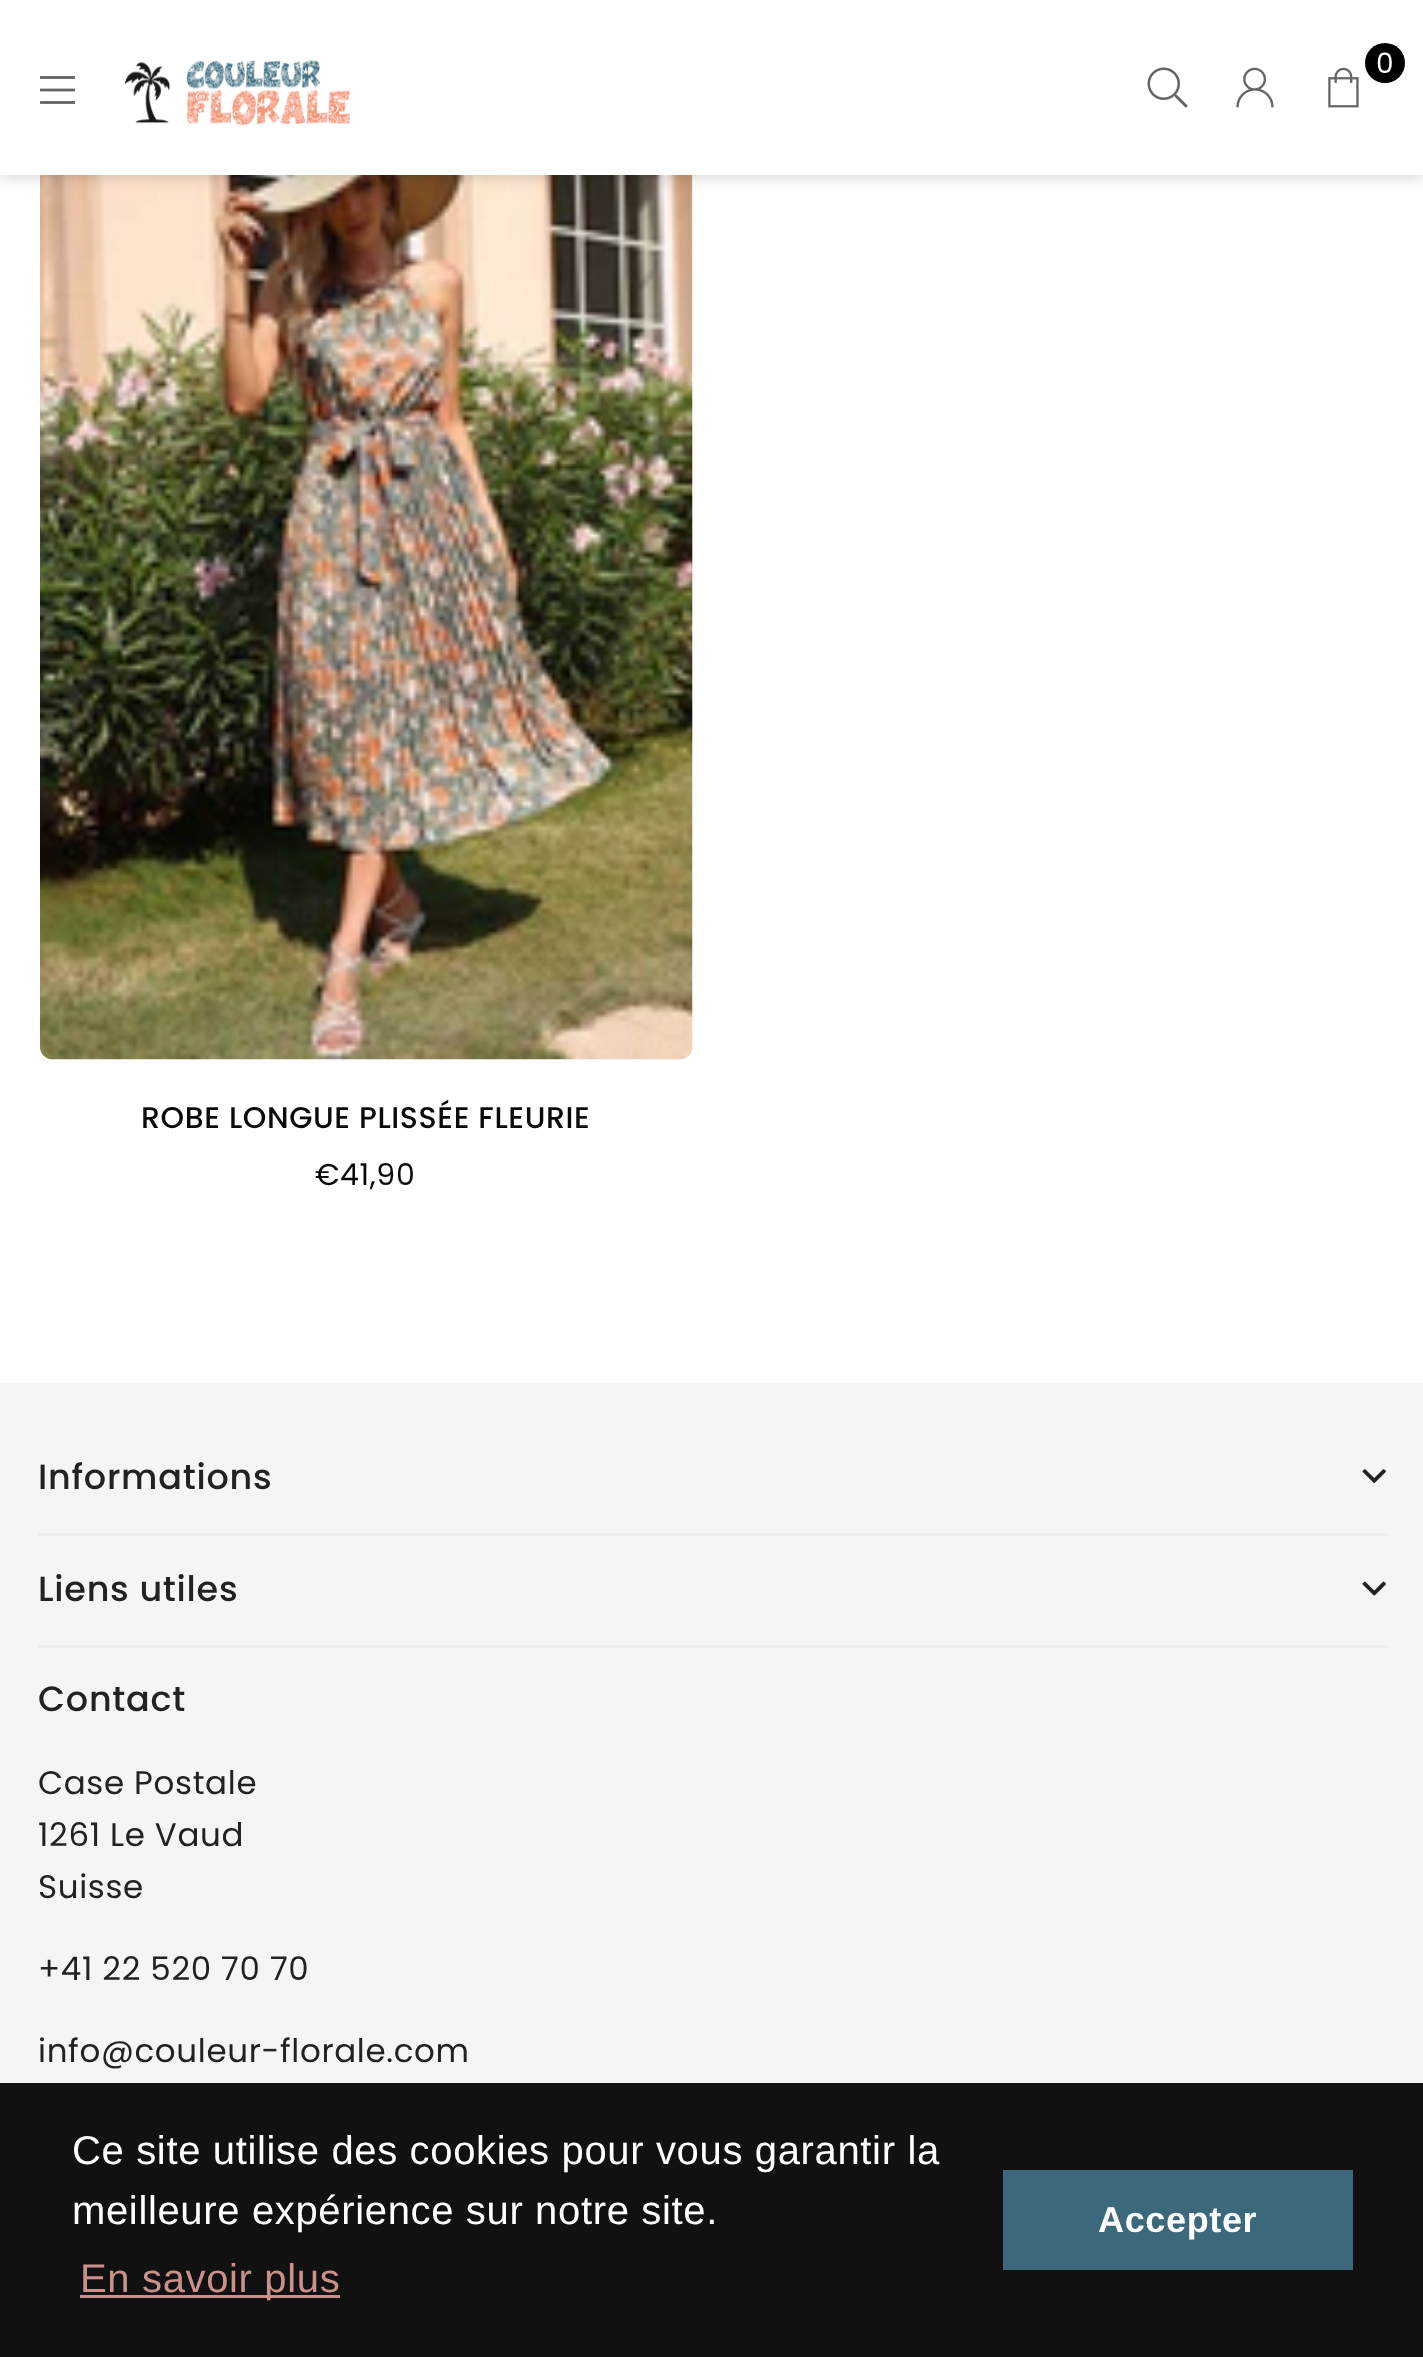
<!DOCTYPE html>
<meta charset="utf-8">
<style>body { margin: 0 } canvas { display: block }</style>
<canvas id="canvas" width="1423" height="2357"></canvas>
<script type="module">
  const canvas = document.getElementById("canvas");
  const ctx = canvas.getContext("2d");
  ctx.miterLimit = 4;
  ctx.fontKerning = "normal";
  async function loadImage(src) {
    const img = new Image();
    img.src = src;
    await img.decode();
    return img;
  }

  ctx.fillStyle = "#ffffff";
  ctx.fillRect(0, 0, 1423, 2357);
  ctx.drawImage(await loadImage("img6.png"), 40, 175, 653, 885);
  ctx.fillStyle = "rgba(0, 0, 0, 0.2)";
  ctx.filter = "blur(9px)";
  ctx.beginPath();
  ctx.rect(0, 0, 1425, 175);
  ctx.fill();
  ctx.filter = "none";
  ctx.fillStyle = "#ffffff";
  ctx.fillRect(0, 0, 1423, 175);
  ctx.drawImage(await loadImage("img1.png"), 40, 76, 35, 28);
  ctx.drawImage(await loadImage("img2.png"), 125, 60, 225, 65);
  ctx.fillStyle = "#000000";
  ctx.beginPath();
  ctx.arc(1385, 63, 20, 0, Math.PI * 2);
  ctx.fill();
  ctx.letterSpacing = "0.65px";
  ctx.font = "28px Poppins";
  ctx.fillStyle = "#ffffff";
  ctx.fillText("0", 1376, 73);
  ctx.drawImage(await loadImage("img3.png"), 1328, 67, 31, 41);
  ctx.drawImage(await loadImage("img4.png"), 1147, 67, 41, 41);
  ctx.drawImage(await loadImage("img5.png"), 1236, 67, 38, 41);
  ctx.letterSpacing = "0.6px";
  ctx.font = "500 30px Poppins";
  ctx.fillStyle = "#0a0a0a";
  ctx.fillText("ROBE LONGUE PLISSÉE FLEURIE", 141, 1128);
  ctx.letterSpacing = "0.65px";
  ctx.font = "30px Poppins";
  ctx.fillText("€41,90", 315, 1185);
  ctx.fillStyle = "#f5f5f5";
  ctx.fillRect(0, 1383, 1423, 700);
  ctx.letterSpacing = "0.75px";
  ctx.font = "500 35px Poppins";
  ctx.fillStyle = "#222222";
  ctx.fillText("Informations", 38, 1489);
  ctx.drawImage(await loadImage("img7.png"), 1362, 1469, 24, 14);
  ctx.fillStyle = "#eeeeee";
  ctx.fillRect(38, 1533, 1350, 3);
  ctx.fillStyle = "#222222";
  ctx.fillText("Liens utiles", 38, 1601);
  ctx.drawImage(await loadImage("img8.png"), 1362, 1581, 24, 15);
  ctx.fillStyle = "#eeeeee";
  ctx.fillRect(38, 1645, 1350, 3);
  ctx.fillStyle = "#222222";
  ctx.fillText("Contact", 38, 1711);
  ctx.letterSpacing = "0.65px";
  ctx.font = "32.5px Poppins";
  ctx.fillText("Case Postale", 38, 1794);
  ctx.fillText("1261 Le Vaud", 38, 1846);
  ctx.fillText("Suisse", 38, 1898);
  ctx.fillText("+41 22 520 70 70", 38, 1980);
  ctx.fillText("info@couleur-florale.com", 38, 2062);
  ctx.fillStyle = "#111111";
  ctx.fillRect(0, 2083, 1423, 274);
  ctx.font = "40px Liberation Sans";
  ctx.fillStyle = "#ffffff";
  ctx.fillText("Ce site utilise des cookies pour vous garantir la", 72, 2164);
  ctx.fillText("meilleure expérience sur notre site.", 72, 2224);
  ctx.fillStyle = "#cb9089";
  ctx.fillRect(80, 2295, 260, 3);
  ctx.fillText("En savoir plus", 80, 2292);
  ctx.fillStyle = "#3c687b";
  ctx.fillRect(1003, 2170, 350, 100);
  ctx.font = "bold 36px Liberation Sans";
  ctx.fillStyle = "#ffffff";
  ctx.fillText("Accepter", 1098, 2232);
</script>
